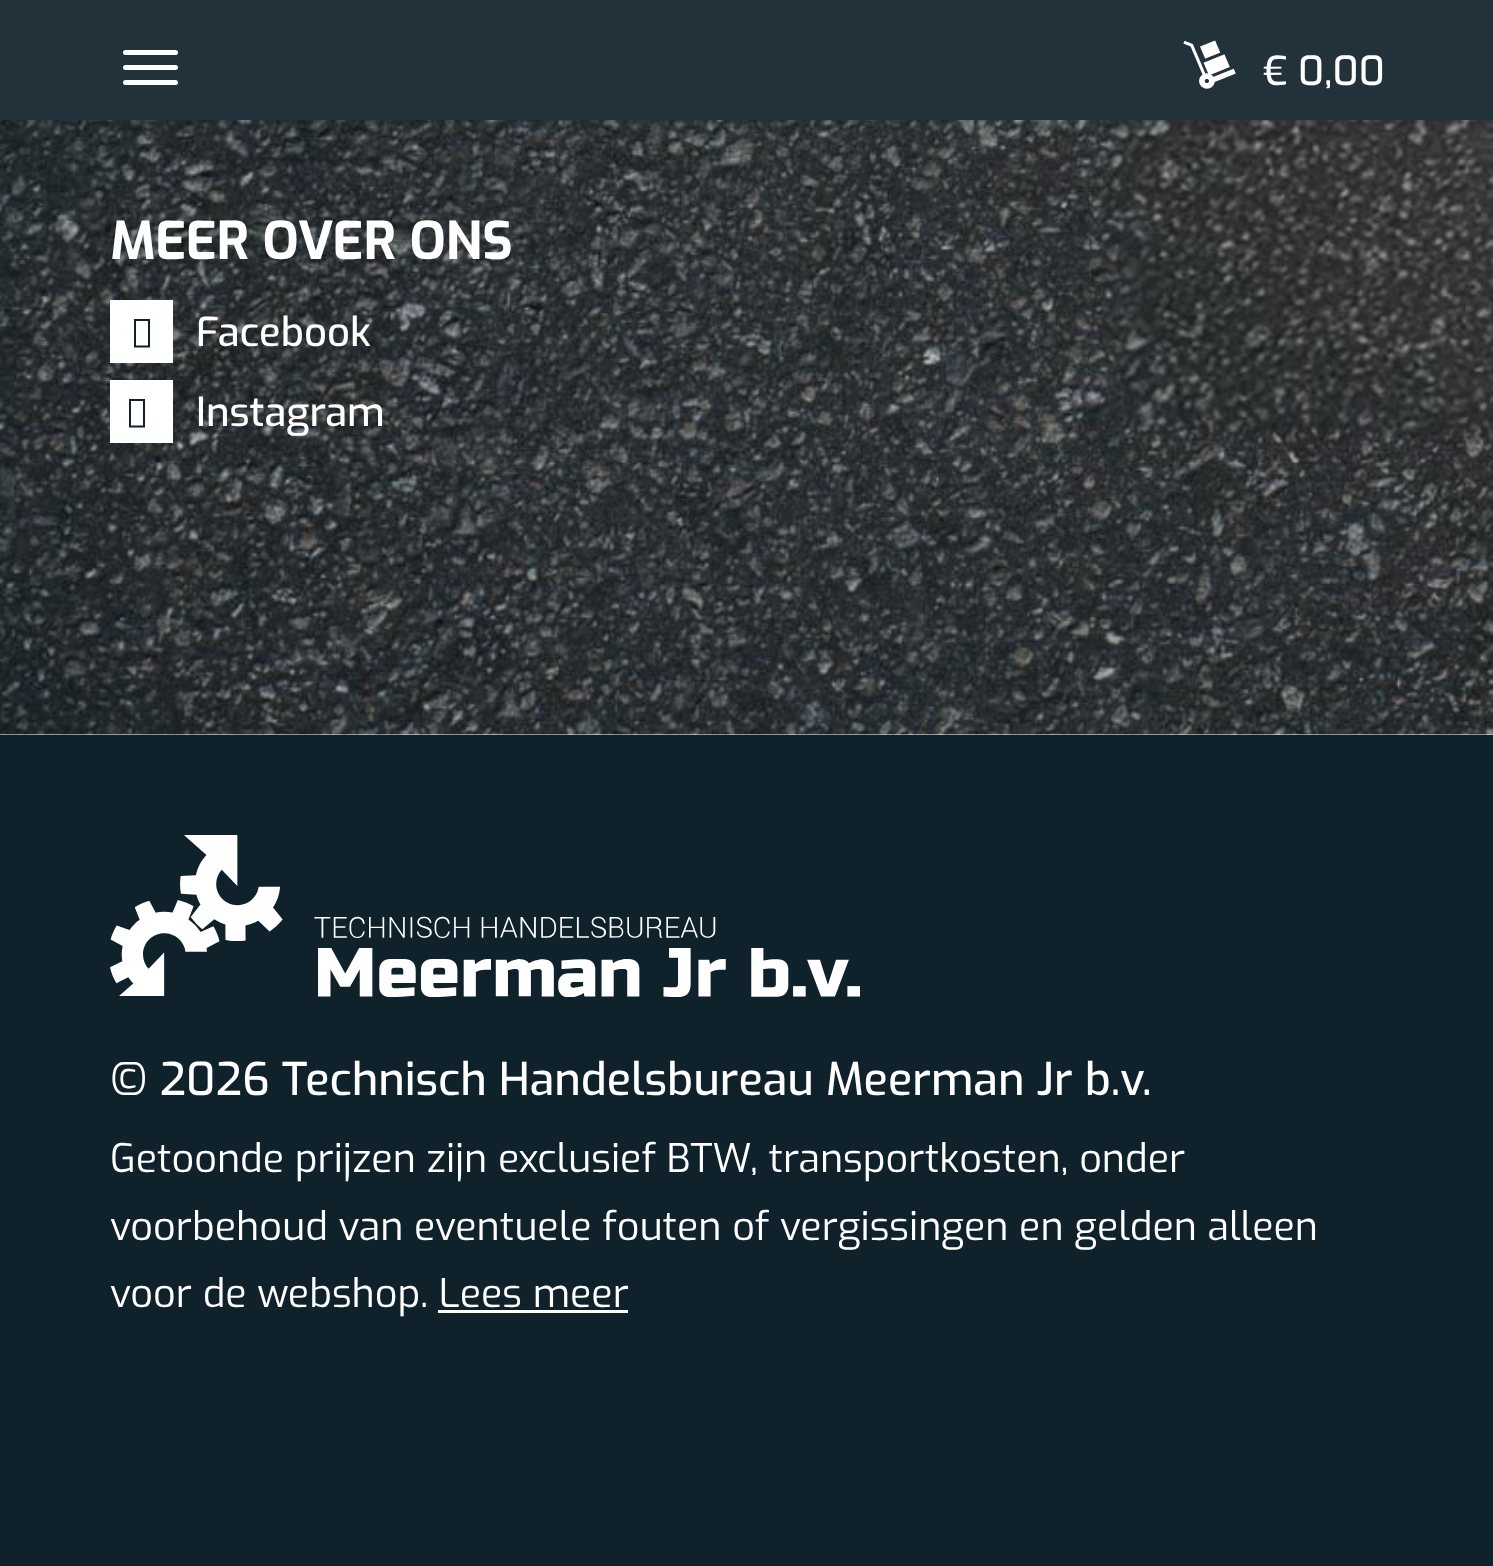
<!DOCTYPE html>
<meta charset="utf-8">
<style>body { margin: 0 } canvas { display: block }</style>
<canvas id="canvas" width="1493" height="1566"></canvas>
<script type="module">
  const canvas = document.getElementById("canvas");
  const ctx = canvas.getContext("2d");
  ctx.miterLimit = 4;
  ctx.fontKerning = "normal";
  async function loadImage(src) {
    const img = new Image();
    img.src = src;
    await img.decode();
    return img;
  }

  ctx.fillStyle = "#ffffff";
  ctx.fillRect(0, 0, 1493, 1566);
  ctx.fillStyle = "#21323a";
  ctx.fillRect(0, 0, 1493, 120);
  ctx.fillStyle = "#ffffff";
  ctx.beginPath();
  ctx.roundRect(123, 50, 55, 5, 2.5);
  ctx.fill();
  ctx.beginPath();
  ctx.roundRect(123, 65, 55, 5, 2.5);
  ctx.fill();
  ctx.beginPath();
  ctx.roundRect(123, 80, 55, 5, 2.5);
  ctx.fill();
  ctx.drawImage(await loadImage("img1.png"), 1183, 40, 53, 49);
  ctx.font = "500 40px Exo";
  ctx.fillText("€ 0,00", 1263, 85);
  ctx.drawImage(await loadImage("img2.png"), 0, 120, 1493, 615);
  ctx.font = "bold 52px Exo";
  ctx.fillText("MEER OVER ONS", 110, 259);
  ctx.fillRect(110, 300, 63, 63);
  ctx.fillStyle = "#0f212b";
  ctx.beginPath();
  ctx.moveTo(134, 347.5);
  ctx.lineTo(134, 319);
  ctx.lineTo(150, 319);
  ctx.lineTo(150, 347.5);
  ctx.closePath();
  ctx.moveTo(136, 345.5);
  ctx.lineTo(148, 345.5);
  ctx.lineTo(148, 321);
  ctx.lineTo(136, 321);
  ctx.closePath();
  ctx.fill();
  ctx.font = "500 40px Exo";
  ctx.fillStyle = "#ffffff";
  ctx.fillText("Facebook", 196, 346);
  ctx.fillRect(110, 380, 63, 63);
  ctx.fillStyle = "#0f212b";
  ctx.beginPath();
  ctx.moveTo(129, 427.5);
  ctx.lineTo(129, 399);
  ctx.lineTo(145, 399);
  ctx.lineTo(145, 427.5);
  ctx.closePath();
  ctx.moveTo(131, 425.5);
  ctx.lineTo(143, 425.5);
  ctx.lineTo(143, 401);
  ctx.lineTo(131, 401);
  ctx.closePath();
  ctx.fill();
  ctx.fillStyle = "#ffffff";
  ctx.fillText("Instagram", 196, 426);
  ctx.fillStyle = "#0f212b";
  ctx.fillRect(0, 735, 1493, 831);
  ctx.drawImage(await loadImage("img3.png"), 110, 835, 750, 162);
  ctx.font = "500 45px Exo";
  ctx.fillStyle = "#ffffff";
  ctx.fillText("© 2026 Technisch Handelsbureau Meerman Jr b.v.", 110, 1095);
  ctx.font = "39.4px Exo";
  ctx.fillText("Getoonde prijzen zijn exclusief BTW, transportkosten, onder", 110, 1172);
  ctx.fillText("voorbehoud van eventuele fouten of vergissingen en gelden alleen", 110, 1240);
  ctx.fillText("voor de webshop. Lees meer", 110, 1307);
  ctx.fillRect(438, 1310, 190, 3);
</script>
